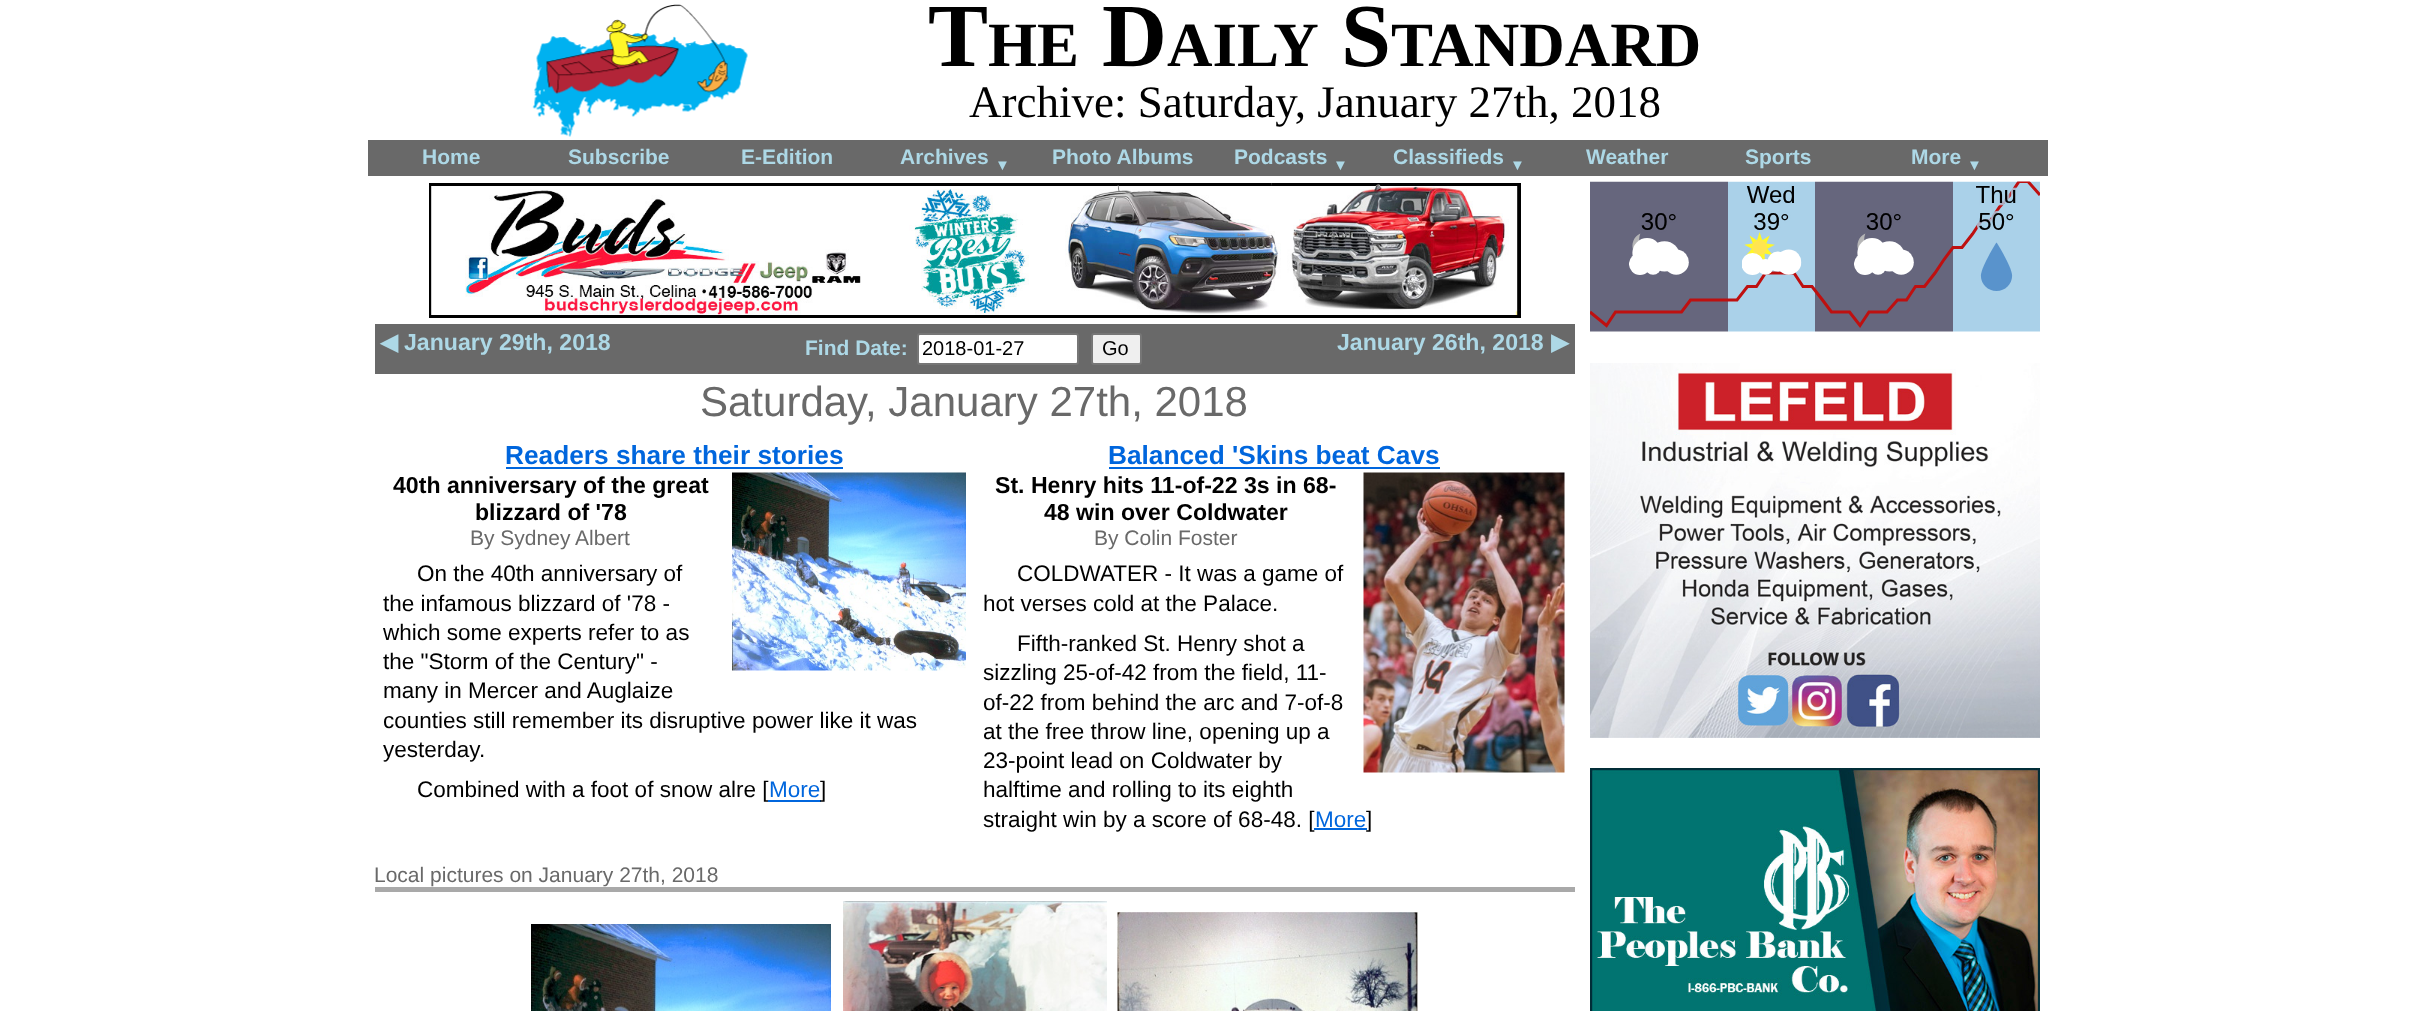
<!DOCTYPE html>
<meta charset="utf-8">
<style>body { margin: 0 } canvas { display: block }</style>
<canvas id="canvas" width="2413" height="1011"></canvas>
<script type="module">
  const canvas = document.getElementById("canvas");
  const ctx = canvas.getContext("2d");
  ctx.miterLimit = 4;
  ctx.fontKerning = "normal";
  async function loadImage(src) {
    const img = new Image();
    img.src = src;
    await img.decode();
    return img;
  }

  ctx.fillStyle = "#ffffff";
  ctx.fillRect(0, 0, 2413, 1011);
  ctx.drawImage(await loadImage("img1.png"), 532, 4, 216, 133);
  ctx.font = "bold 90px Liberation Serif";
  ctx.fillStyle = "#000000";
  ctx.fillText("T", 928, 66);
  ctx.font = "bold 63px Liberation Serif";
  ctx.fillText("HE", 988, 66);
  ctx.font = "bold 90px Liberation Serif";
  ctx.fillText("D", 1102, 66);
  ctx.font = "bold 63px Liberation Serif";
  ctx.fillText("AILY", 1167, 66);
  ctx.font = "bold 90px Liberation Serif";
  ctx.fillText("S", 1341, 66);
  ctx.font = "bold 63px Liberation Serif";
  ctx.fillText("TANDARD", 1391, 66);
  ctx.font = "45px Liberation Serif";
  ctx.fillText("Archive: Saturday, January 27th, 2018", 969, 117);
  ctx.fillStyle = "#696969";
  ctx.fillRect(368, 140, 1680, 36);
  ctx.font = "bold 21px Liberation Sans";
  ctx.fillStyle = "#add8e6";
  ctx.fillText("Home", 422, 164);
  ctx.fillText("Subscribe", 568, 164);
  ctx.fillText("E-Edition", 741, 164);
  ctx.fillText("Archives", 900, 164);
  ctx.font = "bold 15px Liberation Sans";
  ctx.fillText("▼", 995, 170);
  ctx.font = "bold 21px Liberation Sans";
  ctx.fillText("Photo Albums", 1052, 164);
  ctx.fillText("Podcasts", 1234, 164);
  ctx.font = "bold 15px Liberation Sans";
  ctx.fillText("▼", 1333, 170);
  ctx.font = "bold 21px Liberation Sans";
  ctx.fillText("Classifieds", 1393, 164);
  ctx.font = "bold 15px Liberation Sans";
  ctx.fillText("▼", 1510, 170);
  ctx.font = "bold 21px Liberation Sans";
  ctx.fillText("Weather", 1586, 164);
  ctx.fillText("Sports", 1745, 164);
  ctx.fillText("More", 1911, 164);
  ctx.font = "bold 15px Liberation Sans";
  ctx.fillText("▼", 1967, 170);
  ctx.drawImage(await loadImage("img2.png"), 1590, 181, 450, 151);
  ctx.drawImage(await loadImage("img3.png"), 429, 183, 1092, 135);
  ctx.fillStyle = "#696969";
  ctx.fillRect(375, 324, 1200, 50);
  ctx.font = "bold 23.1px DejaVu Sans";
  ctx.fillStyle = "#add8e6";
  ctx.fillText("◀", 380, 350);
  ctx.font = "bold 23.1px Liberation Sans";
  ctx.fillText("January 29th, 2018", 404, 350);
  ctx.font = "bold 21px Liberation Sans";
  ctx.fillText("Find Date:", 805, 355);
  ctx.fillStyle = "#ffffff";
  ctx.beginPath();
  ctx.roundRect(918, 334, 160, 30, 2);
  ctx.fill();
  ctx.strokeStyle = "#767676";
  ctx.lineWidth = 2;
  ctx.stroke();
  ctx.font = "20px Liberation Sans";
  ctx.fillStyle = "#000000";
  ctx.fillText("2018-01-27", 922, 355);
  ctx.fillStyle = "#efefef";
  ctx.beginPath();
  ctx.roundRect(1092, 334, 49, 30, 2);
  ctx.fill();
  ctx.stroke();
  ctx.fillStyle = "#000000";
  ctx.fillText("Go", 1102, 355);
  ctx.font = "bold 23.1px Liberation Sans";
  ctx.fillStyle = "#add8e6";
  ctx.fillText("January 26th, 2018", 1337, 350);
  ctx.font = "bold 23.1px DejaVu Sans";
  ctx.fillText("▶", 1551, 350);
  ctx.font = "42px Liberation Sans";
  ctx.fillStyle = "#696969";
  ctx.fillText("Saturday, January 27th, 2018", 700, 416);
  ctx.font = "bold 26.25px Liberation Sans";
  ctx.fillStyle = "#0066dd";
  ctx.fillText("Readers share their stories", 505, 464);
  ctx.fillRect(506, 467, 337, 2);
  ctx.font = "bold 23.1px Liberation Sans";
  ctx.fillStyle = "#000000";
  ctx.fillText("40th anniversary of the great", 393, 493);
  ctx.fillText("blizzard of '78", 475, 520);
  ctx.drawImage(await loadImage("img4.png"), 732, 472, 234, 199);
  ctx.font = "21px Liberation Sans";
  ctx.fillStyle = "#696969";
  ctx.fillText("By Sydney Albert", 470, 545);
  ctx.font = "22.5px Liberation Sans";
  ctx.fillStyle = "#000000";
  ctx.fillText("On the 40th anniversary of", 417, 581);
  ctx.fillText("the infamous blizzard of '78 -", 383, 611);
  ctx.fillText("which some experts refer to as", 383, 640);
  ctx.fillText("the \"Storm of the Century\" -", 383, 669);
  ctx.fillText("many in Mercer and Auglaize", 383, 698);
  ctx.fillText("counties still remember its disruptive power like it was", 383, 728);
  ctx.fillText("yesterday.", 383, 757);
  ctx.fillText("Combined with a foot of snow alre [", 417, 797);
  ctx.fillStyle = "#0066dd";
  ctx.fillText("More", 769, 797);
  ctx.fillRect(768, 800, 53, 2);
  ctx.fillStyle = "#000000";
  ctx.fillText("]", 820, 797);
  ctx.font = "bold 26.25px Liberation Sans";
  ctx.fillStyle = "#0066dd";
  ctx.fillText("Balanced 'Skins beat Cavs", 1108, 464);
  ctx.fillRect(1109, 467, 331, 2);
  ctx.font = "bold 23.1px Liberation Sans";
  ctx.fillStyle = "#000000";
  ctx.fillText("St. Henry hits 11-of-22 3s in 68-", 995, 493);
  ctx.fillText("48 win over Coldwater", 1044, 520);
  ctx.drawImage(await loadImage("img5.png"), 1363, 472, 202, 301);
  ctx.font = "21px Liberation Sans";
  ctx.fillStyle = "#696969";
  ctx.fillText("By Colin Foster", 1094, 545);
  ctx.font = "22.5px Liberation Sans";
  ctx.fillStyle = "#000000";
  ctx.fillText("COLDWATER - It was a game of", 1017, 581);
  ctx.fillText("hot verses cold at the Palace.", 983, 611);
  ctx.fillText("Fifth-ranked St. Henry shot a", 1017, 651);
  ctx.fillText("sizzling 25-of-42 from the field, 11-", 983, 680);
  ctx.fillText("of-22 from behind the arc and 7-of-8", 983, 710);
  ctx.fillText("at the free throw line, opening up a", 983, 739);
  ctx.fillText("23-point lead on Coldwater by", 983, 768);
  ctx.fillText("halftime and rolling to its eighth", 983, 797);
  ctx.fillText("straight win by a score of 68-48. [", 983, 827);
  ctx.fillStyle = "#0066dd";
  ctx.fillText("More", 1315, 827);
  ctx.fillRect(1314, 828, 53, 2);
  ctx.fillStyle = "#000000";
  ctx.fillText("]", 1366, 827);
  ctx.fillStyle = "#a9a9a9";
  ctx.fillRect(375, 887, 1200, 5);
  ctx.font = "21px Liberation Sans";
  ctx.fillStyle = "#696969";
  ctx.fillText("Local pictures on January 27th, 2018", 374, 882);
  ctx.drawImage(await loadImage("img6.png"), 531, 924, 300, 87);
  ctx.drawImage(await loadImage("img7.png"), 843, 901, 264, 110);
  ctx.drawImage(await loadImage("img8.png"), 1117, 912, 301, 99);
  ctx.drawImage(await loadImage("img9.png"), 1590, 363, 450, 375);
  ctx.drawImage(await loadImage("img10.png"), 1590, 768, 450, 243);
</script>
